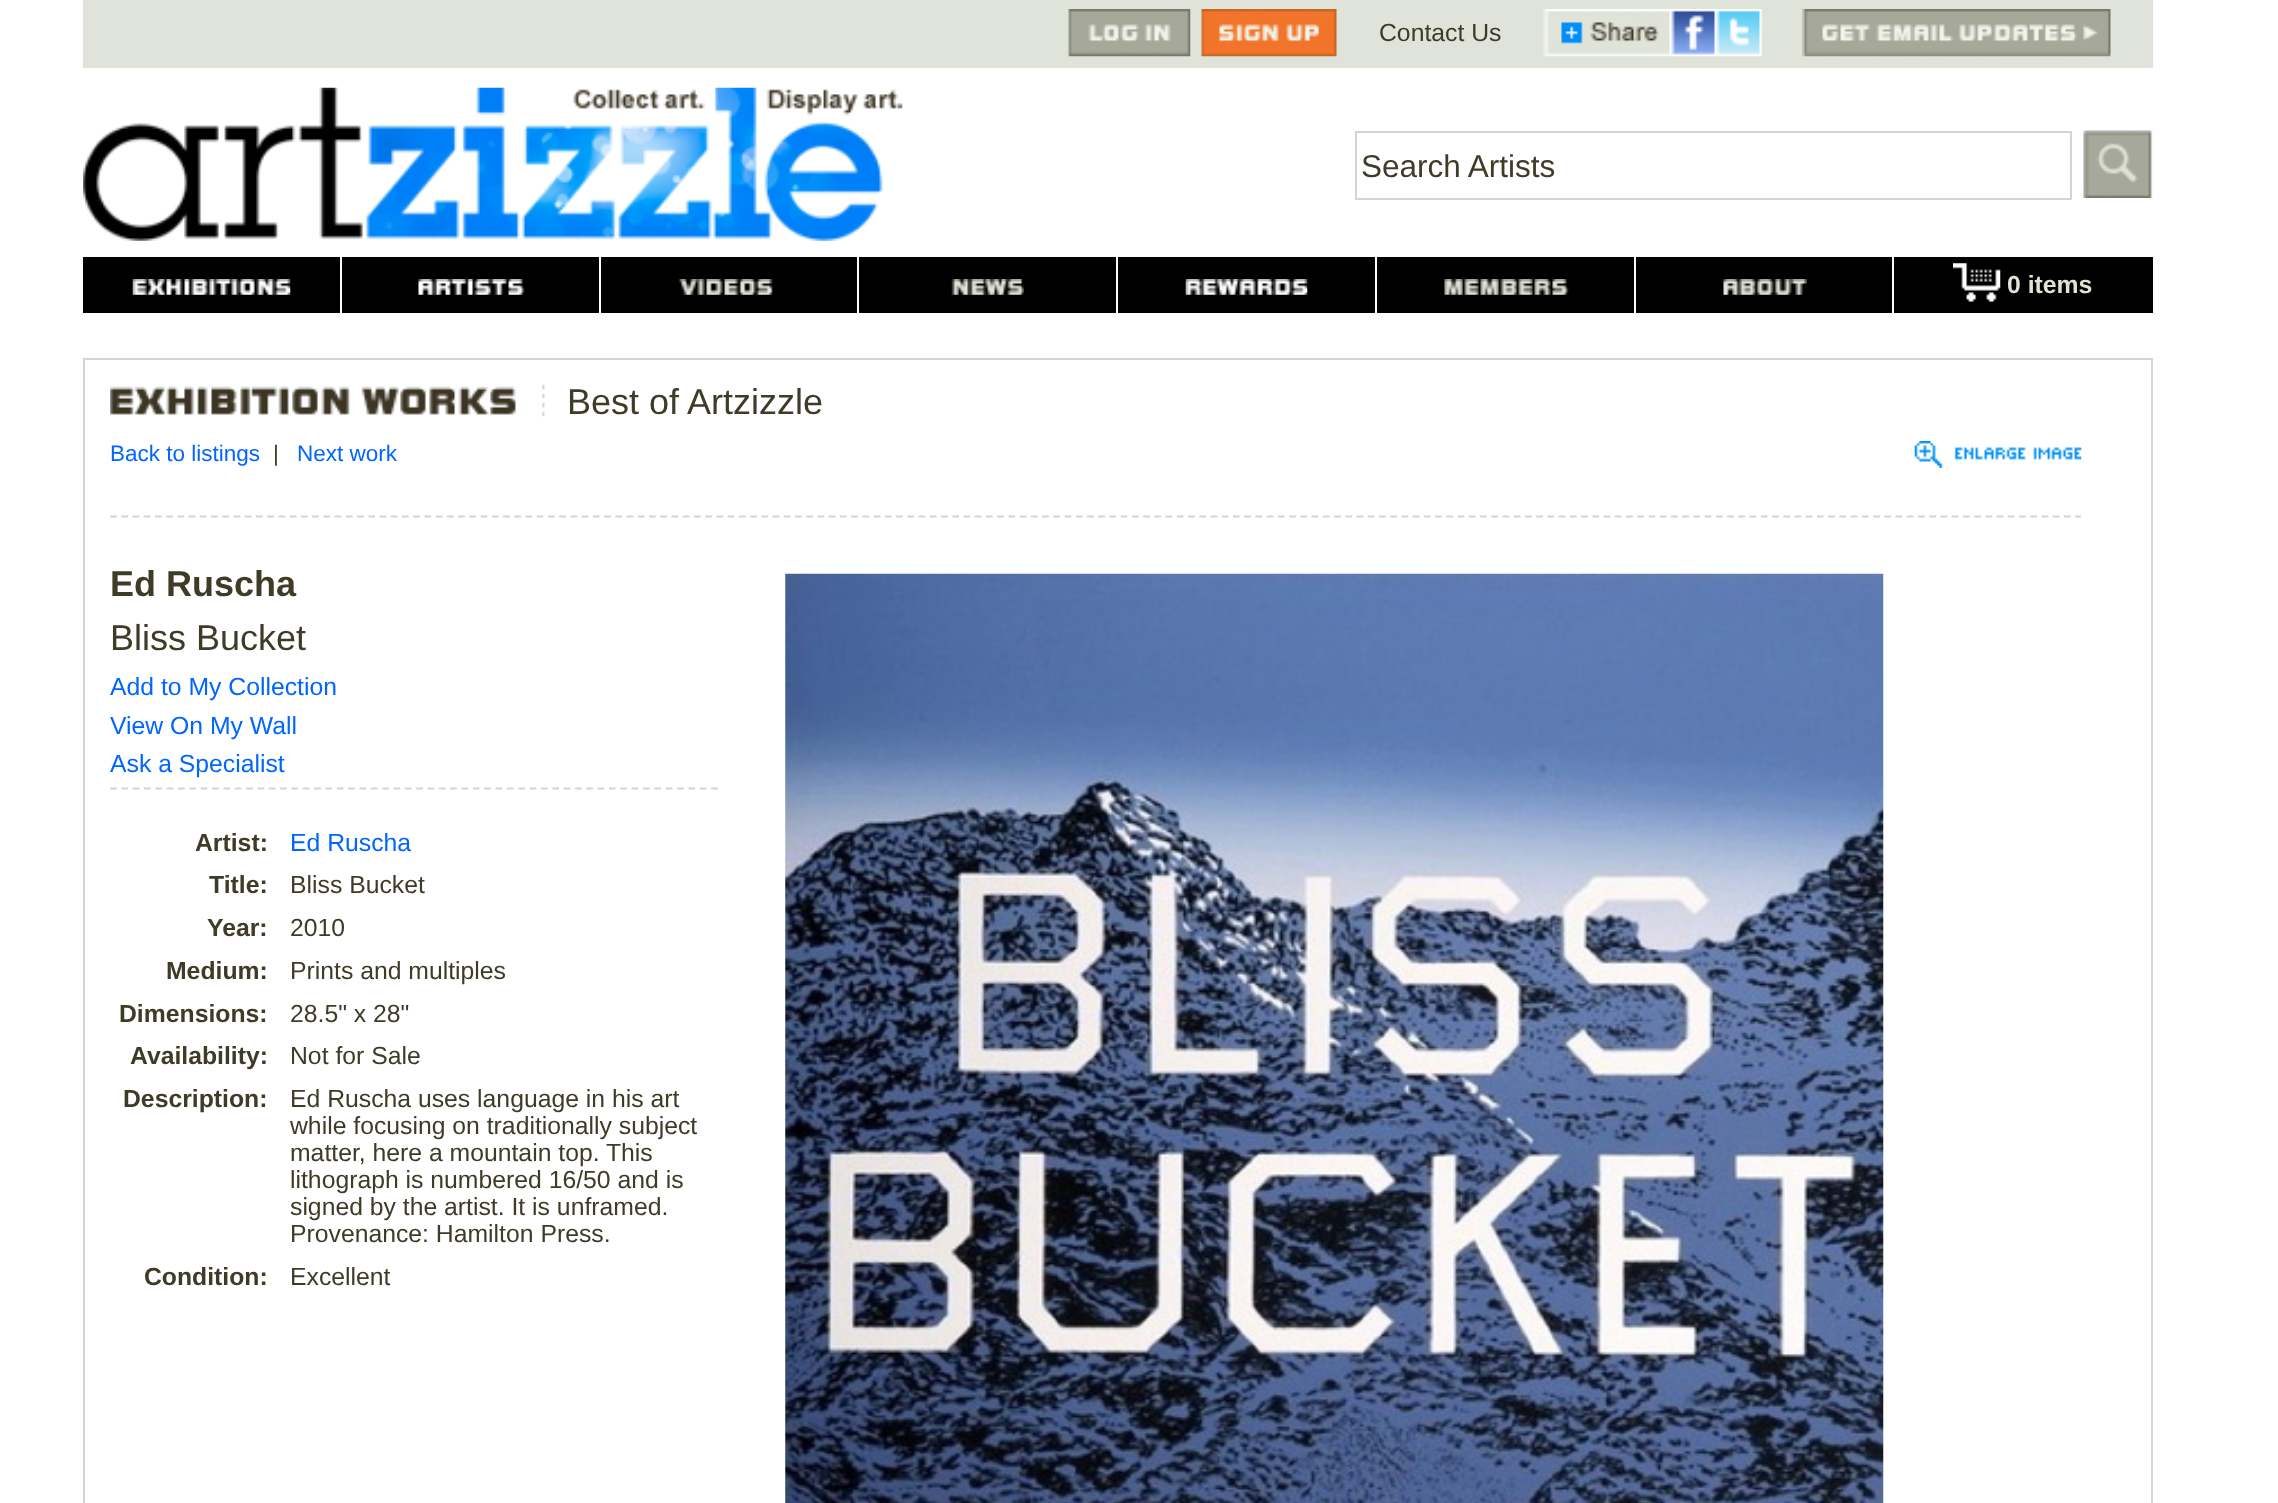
<!DOCTYPE html>
<meta charset="utf-8">
<style>body { margin: 0 } canvas { display: block }</style>
<canvas id="canvas" width="2278" height="1503"></canvas>
<script type="module">
  const canvas = document.getElementById("canvas");
  const ctx = canvas.getContext("2d");
  ctx.miterLimit = 4;
  ctx.fontKerning = "normal";
  async function loadImage(src) {
    const img = new Image();
    img.src = src;
    await img.decode();
    return img;
  }

  ctx.fillStyle = "#ffffff";
  ctx.fillRect(0, 0, 2278, 1503);
  ctx.fillStyle = "#dfe3d9";
  ctx.fillRect(83, 0, 2070, 68);
  ctx.drawImage(await loadImage("img1.png"), 1068, 9, 123, 48);
  ctx.drawImage(await loadImage("img2.png"), 1201, 9, 136, 48);
  ctx.font = "24.75px Liberation Sans";
  ctx.fillStyle = "#3e3b27";
  ctx.fillText("Contact Us", 1379, 41);
  ctx.drawImage(await loadImage("img3.png"), 1543, 9, 219, 48);
  ctx.drawImage(await loadImage("img4.png"), 1802, 9, 309, 48);
  ctx.drawImage(await loadImage("img5.png"), 83, 87, 820, 154);
  ctx.strokeStyle = "#d4d4d4";
  ctx.lineWidth = 2;
  ctx.strokeRect(1356, 132, 715, 67);
  ctx.font = "31.5px Liberation Sans";
  ctx.fillText("Search Artists", 1361, 177);
  ctx.drawImage(await loadImage("img6.png"), 2083, 130, 70, 68);
  ctx.fillStyle = "#000000";
  ctx.fillRect(83, 257, 2070, 56);
  ctx.fillStyle = "#ffffff";
  ctx.fillRect(340, 257, 2, 56);
  ctx.drawImage(await loadImage("img7.png"), 132, 279, 159, 16);
  ctx.fillRect(599, 257, 2, 56);
  ctx.drawImage(await loadImage("img8.png"), 418, 279, 107, 16);
  ctx.fillRect(857, 257, 2, 56);
  ctx.drawImage(await loadImage("img9.png"), 679, 279, 94, 16);
  ctx.fillRect(1116, 257, 2, 56);
  ctx.drawImage(await loadImage("img10.png"), 951, 279, 73, 16);
  ctx.fillRect(1375, 257, 2, 56);
  ctx.drawImage(await loadImage("img11.png"), 1185, 279, 123, 16);
  ctx.fillRect(1634, 257, 2, 56);
  ctx.drawImage(await loadImage("img12.png"), 1444, 279, 125, 16);
  ctx.fillRect(1892, 257, 2, 56);
  ctx.drawImage(await loadImage("img13.png"), 1723, 279, 84, 16);
  ctx.drawImage(await loadImage("img14.png"), 1953, 263, 48, 39);
  ctx.font = "bold 24.75px Liberation Sans";
  ctx.fillStyle = "#dee5d6";
  ctx.fillText("0 items", 2007, 293);
  ctx.strokeRect(84, 359, 2068, 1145);
  ctx.drawImage(await loadImage("img15.png"), 110, 384, 435, 33);
  ctx.font = "36px Liberation Sans";
  ctx.fillStyle = "#3e3b27";
  ctx.fillText("Best of Artzizzle", 567, 414);
  ctx.beginPath();
  ctx.moveTo(110, 516.5);
  ctx.lineTo(2081, 516.5);
  ctx.lineWidth = 2.2;
  ctx.setLineDash([6.75, 4.48]);
  ctx.stroke();
  ctx.font = "22.5px Liberation Sans";
  ctx.fillStyle = "#0066ff";
  ctx.fillText("Back to listings", 110, 461);
  ctx.fillStyle = "#3e3b27";
  ctx.fillText("|", 273, 461);
  ctx.fillStyle = "#0066ff";
  ctx.fillText("Next work", 297, 461);
  ctx.drawImage(await loadImage("img16.png"), 1914, 441, 168, 27);
  ctx.font = "bold 36px Liberation Sans";
  ctx.fillStyle = "#3e3b27";
  ctx.fillText("Ed Ruscha", 110, 596);
  ctx.font = "36px Liberation Sans";
  ctx.fillText("Bliss Bucket", 110, 650);
  ctx.font = "24.75px Liberation Sans";
  ctx.fillStyle = "#0066ff";
  ctx.fillText("Add to My Collection", 110, 695);
  ctx.fillText("View On My Wall", 110, 734);
  ctx.fillText("Ask a Specialist", 110, 772);
  ctx.beginPath();
  ctx.moveTo(110, 788.5);
  ctx.lineTo(718, 788.5);
  ctx.setLineDash([6.75, 4.59]);
  ctx.stroke();
  ctx.font = "bold 24.75px Liberation Sans";
  ctx.fillStyle = "#3e3b27";
  ctx.fillText("Artist:", 195, 851);
  ctx.font = "24.75px Liberation Sans";
  ctx.fillStyle = "#0066ff";
  ctx.fillText("Ed Ruscha", 290, 851);
  ctx.font = "bold 24.75px Liberation Sans";
  ctx.fillStyle = "#3e3b27";
  ctx.fillText("Title:", 209, 893);
  ctx.font = "24.75px Liberation Sans";
  ctx.fillText("Bliss Bucket", 290, 893);
  ctx.font = "bold 24.75px Liberation Sans";
  ctx.fillText("Year:", 207, 936);
  ctx.font = "24.75px Liberation Sans";
  ctx.fillText("2010", 290, 936);
  ctx.font = "bold 24.75px Liberation Sans";
  ctx.fillText("Medium:", 166, 979);
  ctx.font = "24.75px Liberation Sans";
  ctx.fillText("Prints and multiples", 290, 979);
  ctx.font = "bold 24.75px Liberation Sans";
  ctx.fillText("Dimensions:", 119, 1022);
  ctx.font = "24.75px Liberation Sans";
  ctx.fillText("28.5\" x 28\"", 290, 1022);
  ctx.font = "bold 24.75px Liberation Sans";
  ctx.fillText("Availability:", 130, 1064);
  ctx.font = "24.75px Liberation Sans";
  ctx.fillText("Not for Sale", 290, 1064);
  ctx.font = "bold 24.75px Liberation Sans";
  ctx.fillText("Description:", 123, 1107);
  ctx.font = "24.75px Liberation Sans";
  ctx.fillText("Ed Ruscha uses language in his art", 290, 1107);
  ctx.fillText("while focusing on traditionally subject", 290, 1134);
  ctx.fillText("matter, here a mountain top. This", 290, 1161);
  ctx.fillText("lithograph is numbered 16/50 and is", 290, 1188);
  ctx.fillText("signed by the artist. It is unframed.", 290, 1215);
  ctx.fillText("Provenance: Hamilton Press.", 290, 1242);
  ctx.font = "bold 24.75px Liberation Sans";
  ctx.fillText("Condition:", 144, 1285);
  ctx.font = "24.75px Liberation Sans";
  ctx.fillText("Excellent", 290, 1285);
  ctx.drawImage(await loadImage("img17.png"), 785, 573, 1099, 930);
</script>
